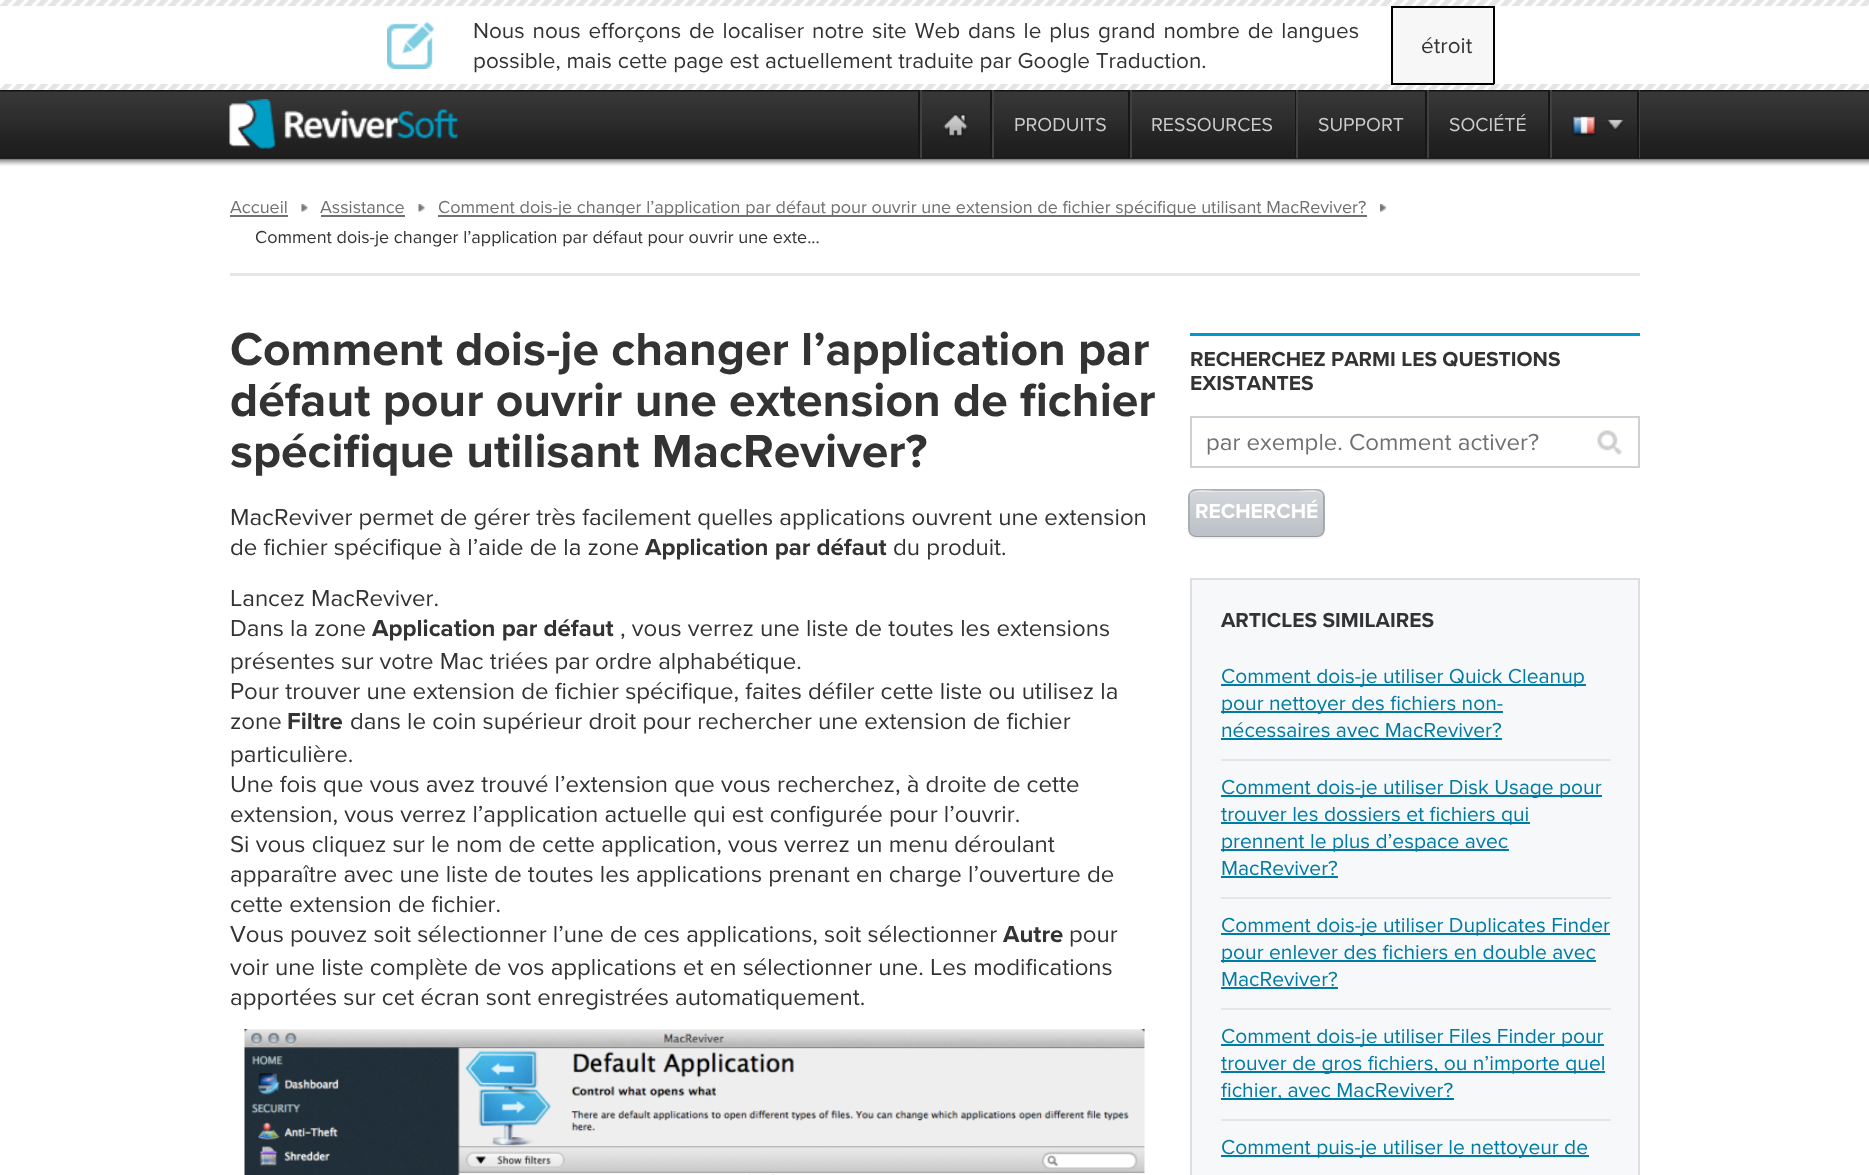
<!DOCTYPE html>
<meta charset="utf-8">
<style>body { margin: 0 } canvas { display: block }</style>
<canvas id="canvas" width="1869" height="1175"></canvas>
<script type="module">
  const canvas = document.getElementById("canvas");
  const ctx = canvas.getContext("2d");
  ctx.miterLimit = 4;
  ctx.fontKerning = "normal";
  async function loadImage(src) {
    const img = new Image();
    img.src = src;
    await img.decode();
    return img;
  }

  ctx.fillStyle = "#ffffff";
  ctx.fillRect(0, 0, 1869, 1175);
  ctx.drawImage(await loadImage("img1.png"), 0, 90, 1869, 76);
  ctx.drawImage(await loadImage("img2.png"), 0, 0, 1869, 6);
  ctx.drawImage(await loadImage("img3.png"), 387, 22, 47, 47);
  ctx.wordSpacing = "2.1px";
  ctx.font = "22.5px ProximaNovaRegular";
  ctx.fillStyle = "#333333";
  ctx.fillText("Nous nous efforçons de localiser notre site Web dans le plus grand nombre de langues", 473, 38);
  ctx.wordSpacing = "0px";
  ctx.fillText("possible, mais cette page est actuellement traduite par Google Traduction.", 473, 68);
  ctx.fillStyle = "#f7f7f7";
  ctx.fillRect(1393, 8, 100, 75);
  ctx.fillStyle = "#000000";
  ctx.fillRect(1391, 6, 103, 2);
  ctx.fillRect(1493, 6, 2, 78);
  ctx.fillRect(1391, 83, 103, 2);
  ctx.fillRect(1391, 6, 2, 78);
  ctx.fillStyle = "#333333";
  ctx.fillText("étroit", 1421, 53);
  ctx.drawImage(await loadImage("img4.png"), 0, 84, 1869, 6);
  ctx.drawImage(await loadImage("img5.png"), 229, 99, 229, 50);
  ctx.fillStyle = "#404040";
  ctx.fillRect(1639, 90, 1, 68);
  ctx.fillStyle = "#171717";
  ctx.fillRect(918, 90, 2, 68);
  ctx.fillRect(990, 90, 2, 68);
  ctx.fillStyle = "#404040";
  ctx.fillRect(920, 90, 2, 68);
  ctx.drawImage(await loadImage("img6.png"), 943, 114, 25, 24);
  ctx.fillStyle = "#171717";
  ctx.fillRect(1128, 90, 2, 68);
  ctx.fillStyle = "#404040";
  ctx.fillRect(992, 90, 2, 68);
  ctx.font = "19.5px ProximaNovaRegular";
  ctx.fillStyle = "#cccccc";
  ctx.fillText("PRODUITS", 1014, 131);
  ctx.fillStyle = "#171717";
  ctx.fillRect(1295, 90, 1, 68);
  ctx.fillStyle = "#404040";
  ctx.fillRect(1130, 90, 2, 68);
  ctx.fillStyle = "#cccccc";
  ctx.fillText("RESSOURCES", 1151, 131);
  ctx.fillStyle = "#171717";
  ctx.fillRect(1425, 90, 2, 68);
  ctx.fillStyle = "#404040";
  ctx.fillRect(1296, 90, 2, 68);
  ctx.fillStyle = "#cccccc";
  ctx.fillText("SUPPORT", 1318, 131);
  ctx.fillStyle = "#171717";
  ctx.fillRect(1548, 90, 2, 68);
  ctx.fillStyle = "#404040";
  ctx.fillRect(1427, 90, 2, 68);
  ctx.fillStyle = "#cccccc";
  ctx.fillText("SOCIÉTÉ", 1449, 131);
  ctx.fillStyle = "#171717";
  ctx.fillRect(1637, 90, 2, 68);
  ctx.fillStyle = "#404040";
  ctx.fillRect(1550, 90, 2, 68);
  ctx.drawImage(await loadImage("img7.png"), 1572, 116, 24, 21);
  ctx.drawImage(await loadImage("img8.png"), 1607, 118, 17, 13);
  ctx.fillStyle = "#e4e6ea";
  ctx.fillRect(230, 273, 1410, 3);
  ctx.font = "18px ProximaNovaRegular";
  ctx.fillStyle = "#717171";
  ctx.fillText("Accueil", 230, 213);
  ctx.fillRect(230, 215, 58, 2);
  ctx.drawImage(await loadImage("img9.png"), 301, 204, 7, 8);
  ctx.fillText("Assistance", 320, 213);
  ctx.fillRect(321, 215, 84, 2);
  ctx.drawImage(await loadImage("img10.png"), 418, 204, 7, 8);
  ctx.fillRect(438, 215, 929, 2);
  ctx.fillText("Comment dois-je changer l’application par défaut pour ouvrir une extension de fichier spécifique utilisant MacReviver?", 438, 213);
  ctx.drawImage(await loadImage("img11.png"), 1380, 204, 6, 8);
  ctx.fillStyle = "#333333";
  ctx.fillText("Comment dois-je changer l’application par défaut pour ouvrir une exte...", 255, 243);
  ctx.font = "48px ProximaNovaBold";
  ctx.fillText("Comment dois-je changer l’application par", 230, 365);
  ctx.fillText("défaut pour ouvrir une extension de fichier", 230, 416);
  ctx.fillText("spécifique utilisant MacReviver?", 230, 467);
  ctx.font = "24px ProximaNovaRegular";
  ctx.fillText("MacReviver permet de gérer très facilement quelles applications ouvrent une extension", 230, 525);
  ctx.fillText("de fichier spécifique à l’aide de la zone", 230, 555);
  ctx.font = "24px ProximaNovaBold";
  ctx.fillText("Application par défaut", 645, 555);
  ctx.font = "24px ProximaNovaRegular";
  ctx.fillText("du produit.", 893, 555);
  ctx.fillText("Lancez MacReviver.", 230, 606);
  ctx.fillText("Dans la zone", 230, 636);
  ctx.font = "24px ProximaNovaBold";
  ctx.fillText("Application par défaut", 372, 636);
  ctx.font = "24px ProximaNovaRegular";
  ctx.fillText(", vous verrez une liste de toutes les extensions", 620, 636);
  ctx.fillText("présentes sur votre Mac triées par ordre alphabétique.", 230, 669);
  ctx.fillText("Pour trouver une extension de fichier spécifique, faites défiler cette liste ou utilisez la", 230, 699);
  ctx.fillText("zone", 230, 729);
  ctx.font = "24px ProximaNovaBold";
  ctx.fillText("Filtre", 287, 729);
  ctx.font = "24px ProximaNovaRegular";
  ctx.fillText("dans le coin supérieur droit pour rechercher une extension de fichier", 350, 729);
  ctx.fillText("particulière.", 230, 762);
  ctx.fillText("Une fois que vous avez trouvé l’extension que vous recherchez, à droite de cette", 230, 792);
  ctx.fillText("extension, vous verrez l’application actuelle qui est configurée pour l’ouvrir.", 230, 822);
  ctx.fillText("Si vous cliquez sur le nom de cette application, vous verrez un menu déroulant", 230, 852);
  ctx.fillText("apparaître avec une liste de toutes les applications prenant en charge l’ouverture de", 230, 882);
  ctx.fillText("cette extension de fichier.", 230, 912);
  ctx.fillText("Vous pouvez soit sélectionner l’une de ces applications, soit sélectionner", 230, 942);
  ctx.font = "24px ProximaNovaBold";
  ctx.fillText("Autre", 1003, 942);
  ctx.font = "24px ProximaNovaRegular";
  ctx.fillText("pour", 1069, 942);
  ctx.fillText("voir une liste complète de vos applications et en sélectionner une. Les modifications", 230, 975);
  ctx.fillText("apportées sur cet écran sont enregistrées automatiquement.", 230, 1005);
  ctx.drawImage(await loadImage("img12.png"), 244, 1029, 901, 146);
  ctx.fillStyle = "#0099cc";
  ctx.fillRect(1190, 333, 450, 3);
  ctx.font = "21px ProximaNovaBold";
  ctx.fillStyle = "#333333";
  ctx.fillText("RECHERCHEZ PARMI LES QUESTIONS", 1190, 366);
  ctx.fillText("EXISTANTES", 1190, 390);
  ctx.strokeStyle = "#ced2d7";
  ctx.lineWidth = 2;
  ctx.strokeRect(1191, 417, 448, 50);
  ctx.font = "24px ProximaNovaRegular";
  ctx.fillStyle = "#717171";
  ctx.fillText("par exemple. Comment activer?", 1206, 450);
  ctx.drawImage(await loadImage("img13.png"), 1597, 430, 25, 25);
  ctx.beginPath();
  ctx.roundRect(1189, 490, 135, 46, 7);
  ctx.strokeStyle = "#afb3b8";
  ctx.stroke();
  ctx.fillStyle = "rgba(0, 0, 0, 0.19)";
  ctx.filter = "blur(1.5px)";
  ctx.beginPath();
  ctx.roundRect(1190, 492, 133, 45, 6);
  ctx.fill();
  ctx.filter = "none";
  ctx.fillStyle = "#bdc2c8";
  ctx.beginPath();
  ctx.roundRect(1190, 491, 133, 45, 6);
  ctx.fill();
  ctx.drawImage(await loadImage("img14.png"), 1189, 490, 134, 43);
  ctx.fillStyle = "rgba(255, 255, 255, 0.5)";
  ctx.beginPath();
  ctx.moveTo(1196, 492);
  ctx.lineTo(1317, 492);
  ctx.bezierCurveTo(1320, 492, 1323, 495, 1323, 498);
  ctx.bezierCurveTo(1323, 486, 1302, 491, 1297, 491);
  ctx.lineTo(1216, 491);
  ctx.bezierCurveTo(1211, 491, 1190, 486, 1190, 498);
  ctx.bezierCurveTo(1190, 495, 1192, 492, 1196, 492);
  ctx.closePath();
  ctx.fill();
  ctx.font = "21px ProximaNovaBold";
  ctx.fillStyle = "#ffffff";
  ctx.fillText("RECHERCHÉ", 1195, 518);
  ctx.fillStyle = "#f7f8f9";
  ctx.beginPath();
  ctx.rect(1191, 579, 448, 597);
  ctx.fill();
  ctx.strokeStyle = "#dedee2";
  ctx.stroke();
  ctx.fillStyle = "#333333";
  ctx.fillText("ARTICLES SIMILAIRES", 1221, 627);
  ctx.fillStyle = "#007ba4";
  ctx.fillRect(1221, 684, 365, 2);
  ctx.font = "21px ProximaNovaRegular";
  ctx.fillText("Comment dois-je utiliser Quick Cleanup", 1221, 683);
  ctx.fillRect(1221, 711, 282, 2);
  ctx.fillText("pour nettoyer des fichiers non-", 1221, 710);
  ctx.fillText("nécessaires avec MacReviver?", 1221, 737);
  ctx.fillRect(1221, 738, 281, 2);
  ctx.fillStyle = "#e4e6ea";
  ctx.fillRect(1221, 759, 390, 2);
  ctx.fillStyle = "#007ba4";
  ctx.fillRect(1221, 795, 381, 2);
  ctx.fillText("Comment dois-je utiliser Disk Usage pour", 1221, 794);
  ctx.fillRect(1221, 822, 309, 2);
  ctx.fillText("trouver les dossiers et fichiers qui", 1221, 821);
  ctx.fillRect(1221, 849, 288, 2);
  ctx.fillText("prennent le plus d’espace avec", 1221, 848);
  ctx.fillText("MacReviver?", 1221, 875);
  ctx.fillRect(1221, 876, 117, 2);
  ctx.fillStyle = "#e4e6ea";
  ctx.fillRect(1221, 897, 390, 2);
  ctx.fillStyle = "#007ba4";
  ctx.fillRect(1221, 933, 389, 2);
  ctx.fillText("Comment dois-je utiliser Duplicates Finder", 1221, 932);
  ctx.fillRect(1221, 960, 375, 2);
  ctx.fillText("pour enlever des fichiers en double avec", 1221, 959);
  ctx.fillText("MacReviver?", 1221, 986);
  ctx.fillRect(1221, 987, 117, 2);
  ctx.fillStyle = "#e4e6ea";
  ctx.fillRect(1221, 1008, 390, 2);
  ctx.fillStyle = "#007ba4";
  ctx.fillRect(1221, 1044, 383, 2);
  ctx.fillText("Comment dois-je utiliser Files Finder pour", 1221, 1043);
  ctx.fillRect(1221, 1071, 384, 2);
  ctx.fillText("trouver de gros fichiers, ou n’importe quel", 1221, 1070);
  ctx.fillRect(1221, 1098, 233, 2);
  ctx.fillText("fichier, avec MacReviver?", 1221, 1097);
  ctx.fillStyle = "#e4e6ea";
  ctx.fillRect(1221, 1119, 390, 2);
  ctx.fillStyle = "#007ba4";
  ctx.fillRect(1221, 1155, 368, 2);
  ctx.fillText("Comment puis-je utiliser le nettoyeur de", 1221, 1154);
</script>
